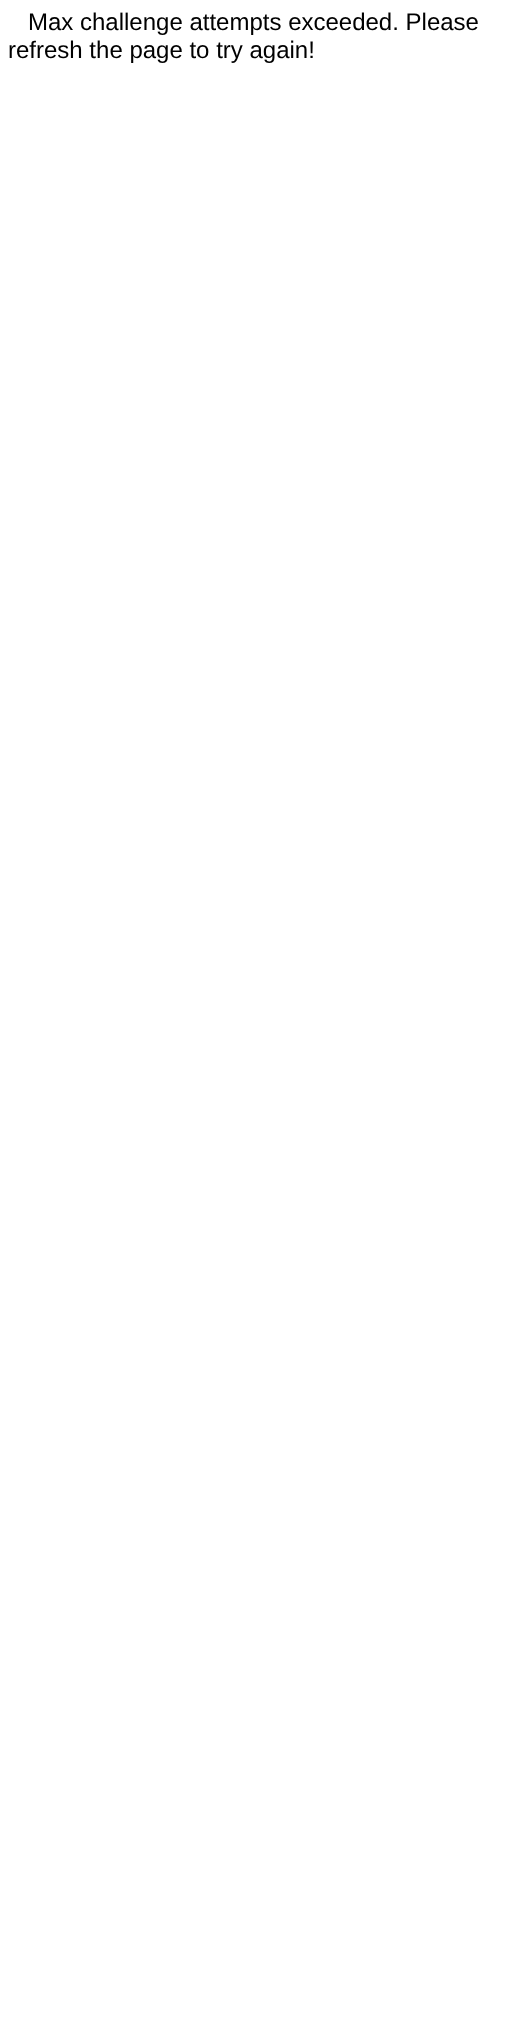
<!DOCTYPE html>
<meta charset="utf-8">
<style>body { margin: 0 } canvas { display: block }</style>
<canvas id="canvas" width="522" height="2027"></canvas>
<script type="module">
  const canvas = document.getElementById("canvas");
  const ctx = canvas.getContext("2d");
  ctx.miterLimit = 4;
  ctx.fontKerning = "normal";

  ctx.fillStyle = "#ffffff";
  ctx.fillRect(0, 0, 522, 2027);
  ctx.font = "24px Liberation Sans";
  ctx.fillStyle = "#000000";
  ctx.fillText("Max challenge attempts exceeded. Please", 28, 30);
  ctx.fillText("refresh the page to try again!", 8, 58);
</script>
